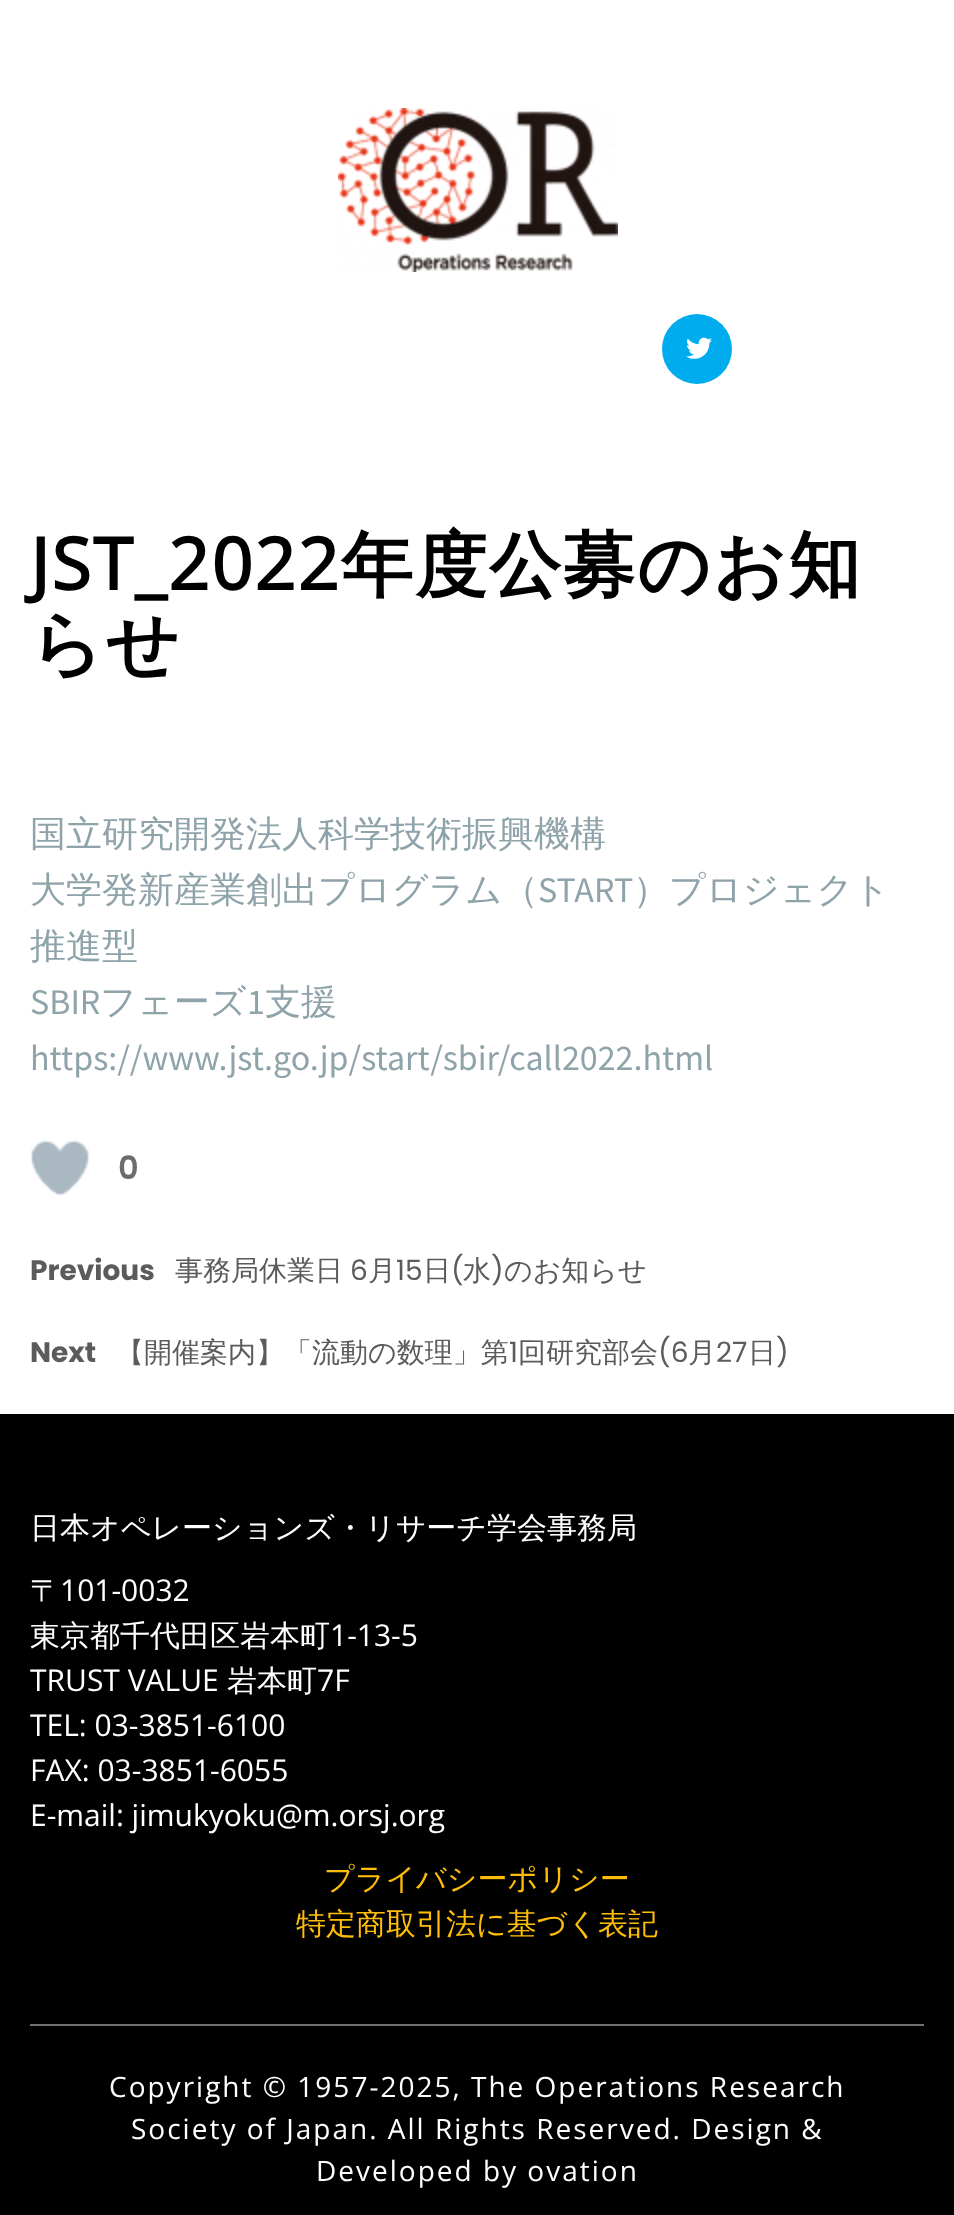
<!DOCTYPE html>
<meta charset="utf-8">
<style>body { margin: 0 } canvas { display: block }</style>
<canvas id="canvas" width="954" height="2215"></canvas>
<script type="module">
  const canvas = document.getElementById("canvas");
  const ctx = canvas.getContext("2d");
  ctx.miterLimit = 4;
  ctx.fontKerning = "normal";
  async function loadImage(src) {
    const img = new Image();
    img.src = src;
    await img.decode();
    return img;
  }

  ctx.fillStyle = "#ffffff";
  ctx.fillRect(0, 0, 954, 2215);
  ctx.drawImage(await loadImage("img1.png"), 338, 108, 280, 164);
  ctx.fillStyle = "#00acee";
  ctx.beginPath();
  ctx.arc(697, 349, 35, 0, Math.PI * 2);
  ctx.fill();
  ctx.drawImage(await loadImage("img2.png"), 686, 337, 26, 22);
  ctx.letterSpacing = "2px";
  ctx.font = "bold 72px Open Sans";
  ctx.fillStyle = "#000000";
  ctx.fillText("JST_2022", 30, 590);
  ctx.font = "bold 72px WenQuanYi Zen Hei";
  ctx.fillText("年度公募のお知", 341, 590);
  ctx.fillText("らせ", 30, 669);
  ctx.letterSpacing = "0px";
  ctx.font = "500 36px WenQuanYi Zen Hei";
  ctx.fillStyle = "#8fa3aa";
  ctx.fillText("国立研究開発法人科学技術振興機構", 30, 846);
  ctx.fillText("大学発新産業創出プログラム（", 30, 902);
  ctx.font = "36px Source Sans Pro";
  ctx.fillText("START", 538, 902);
  ctx.font = "500 36px WenQuanYi Zen Hei";
  ctx.fillText("）プロジェクト", 633, 902);
  ctx.fillText("推進型", 30, 958);
  ctx.font = "36px Source Sans Pro";
  ctx.fillText("SBIR", 30, 1014);
  ctx.font = "500 36px WenQuanYi Zen Hei";
  ctx.fillText("フェーズ", 100, 1014);
  ctx.font = "36px Source Sans Pro";
  ctx.fillText("1", 247, 1014);
  ctx.font = "500 36px WenQuanYi Zen Hei";
  ctx.fillText("支援", 265, 1014);
  ctx.font = "36px Source Sans Pro";
  ctx.fillText("https://www.jst.go.jp/start/sbir/call2022.html", 30, 1070);
  ctx.drawImage(await loadImage("img3.png"), 31, 1140, 59, 56);
  ctx.font = "600 32px Poppins";
  ctx.fillStyle = "#6c6c6c";
  ctx.fillText("0", 118, 1179);
  ctx.font = "bold 28px Poppins";
  ctx.fillStyle = "#5b5b5b";
  ctx.fillText("Previous", 30, 1280);
  ctx.font = "500 28px WenQuanYi Zen Hei";
  ctx.fillText("事務局休業日", 175, 1280);
  ctx.font = "28px Poppins";
  ctx.fillText("6", 350, 1280);
  ctx.font = "500 28px WenQuanYi Zen Hei";
  ctx.fillText("月", 368, 1280);
  ctx.font = "28px Poppins";
  ctx.fillText("15", 396, 1280);
  ctx.font = "500 28px WenQuanYi Zen Hei";
  ctx.fillText("日", 423, 1280);
  ctx.font = "28px Poppins";
  ctx.fillText("(", 451, 1280);
  ctx.font = "500 28px WenQuanYi Zen Hei";
  ctx.fillText("水", 463, 1280);
  ctx.font = "28px Poppins";
  ctx.fillText(")", 491, 1280);
  ctx.font = "500 28px WenQuanYi Zen Hei";
  ctx.fillText("のお知らせ", 504, 1280);
  ctx.font = "bold 28px Poppins";
  ctx.fillText("Next", 30, 1362);
  ctx.font = "500 28px WenQuanYi Zen Hei";
  ctx.fillText("【開催案内】「流動の数理」第", 116, 1362);
  ctx.font = "28px Poppins";
  ctx.fillText("1", 509, 1362);
  ctx.font = "500 28px WenQuanYi Zen Hei";
  ctx.fillText("回研究部会", 518, 1362);
  ctx.font = "28px Poppins";
  ctx.fillText("(6", 658, 1362);
  ctx.font = "500 28px WenQuanYi Zen Hei";
  ctx.fillText("月", 688, 1362);
  ctx.font = "28px Poppins";
  ctx.fillText("27", 716, 1362);
  ctx.font = "500 28px WenQuanYi Zen Hei";
  ctx.fillText("日", 748, 1362);
  ctx.font = "28px Poppins";
  ctx.fillText(")", 776, 1362);
  ctx.fillStyle = "#000000";
  ctx.fillRect(0, 1414, 954, 801);
  ctx.font = "500 30px WenQuanYi Zen Hei";
  ctx.fillStyle = "#ffffff";
  ctx.fillText("日本オペレーションズ・リサーチ学会事務局", 30, 1538);
  ctx.fillText("〒", 30, 1601);
  ctx.font = "30px Open Sans";
  ctx.fillText("101-0032", 60, 1601);
  ctx.font = "500 30px WenQuanYi Zen Hei";
  ctx.fillText("東京都千代田区岩本町", 30, 1646);
  ctx.font = "30px Open Sans";
  ctx.fillText("1-13-5", 330, 1646);
  ctx.fillText("TRUST VALUE", 30, 1691);
  ctx.font = "500 30px WenQuanYi Zen Hei";
  ctx.fillText("岩本町", 227, 1691);
  ctx.font = "30px Open Sans";
  ctx.fillText("7F", 317, 1691);
  ctx.fillText("TEL: 03-3851-6100", 30, 1736);
  ctx.fillText("FAX: 03-3851-6055", 30, 1781);
  ctx.fillText("E-mail: jimukyoku@m.orsj.org", 30, 1826);
  ctx.font = "500 30px WenQuanYi Zen Hei";
  ctx.fillStyle = "#ffbd0a";
  ctx.fillText("プライバシーポリシー", 324, 1889);
  ctx.fillText("特定商取引法に基づく表記", 296, 1934);
  ctx.fillStyle = "#757070";
  ctx.fillRect(30, 2024, 894, 2);
  ctx.letterSpacing = "2px";
  ctx.font = "28px Open Sans";
  ctx.fillStyle = "#ffffff";
  ctx.fillText("Copyright © 1957-2025, The Operations Research", 109, 2097);
  ctx.fillText("Society of Japan. All Rights Reserved. Design &", 131, 2139);
  ctx.fillText("Developed by ovation", 316, 2181);
</script>
